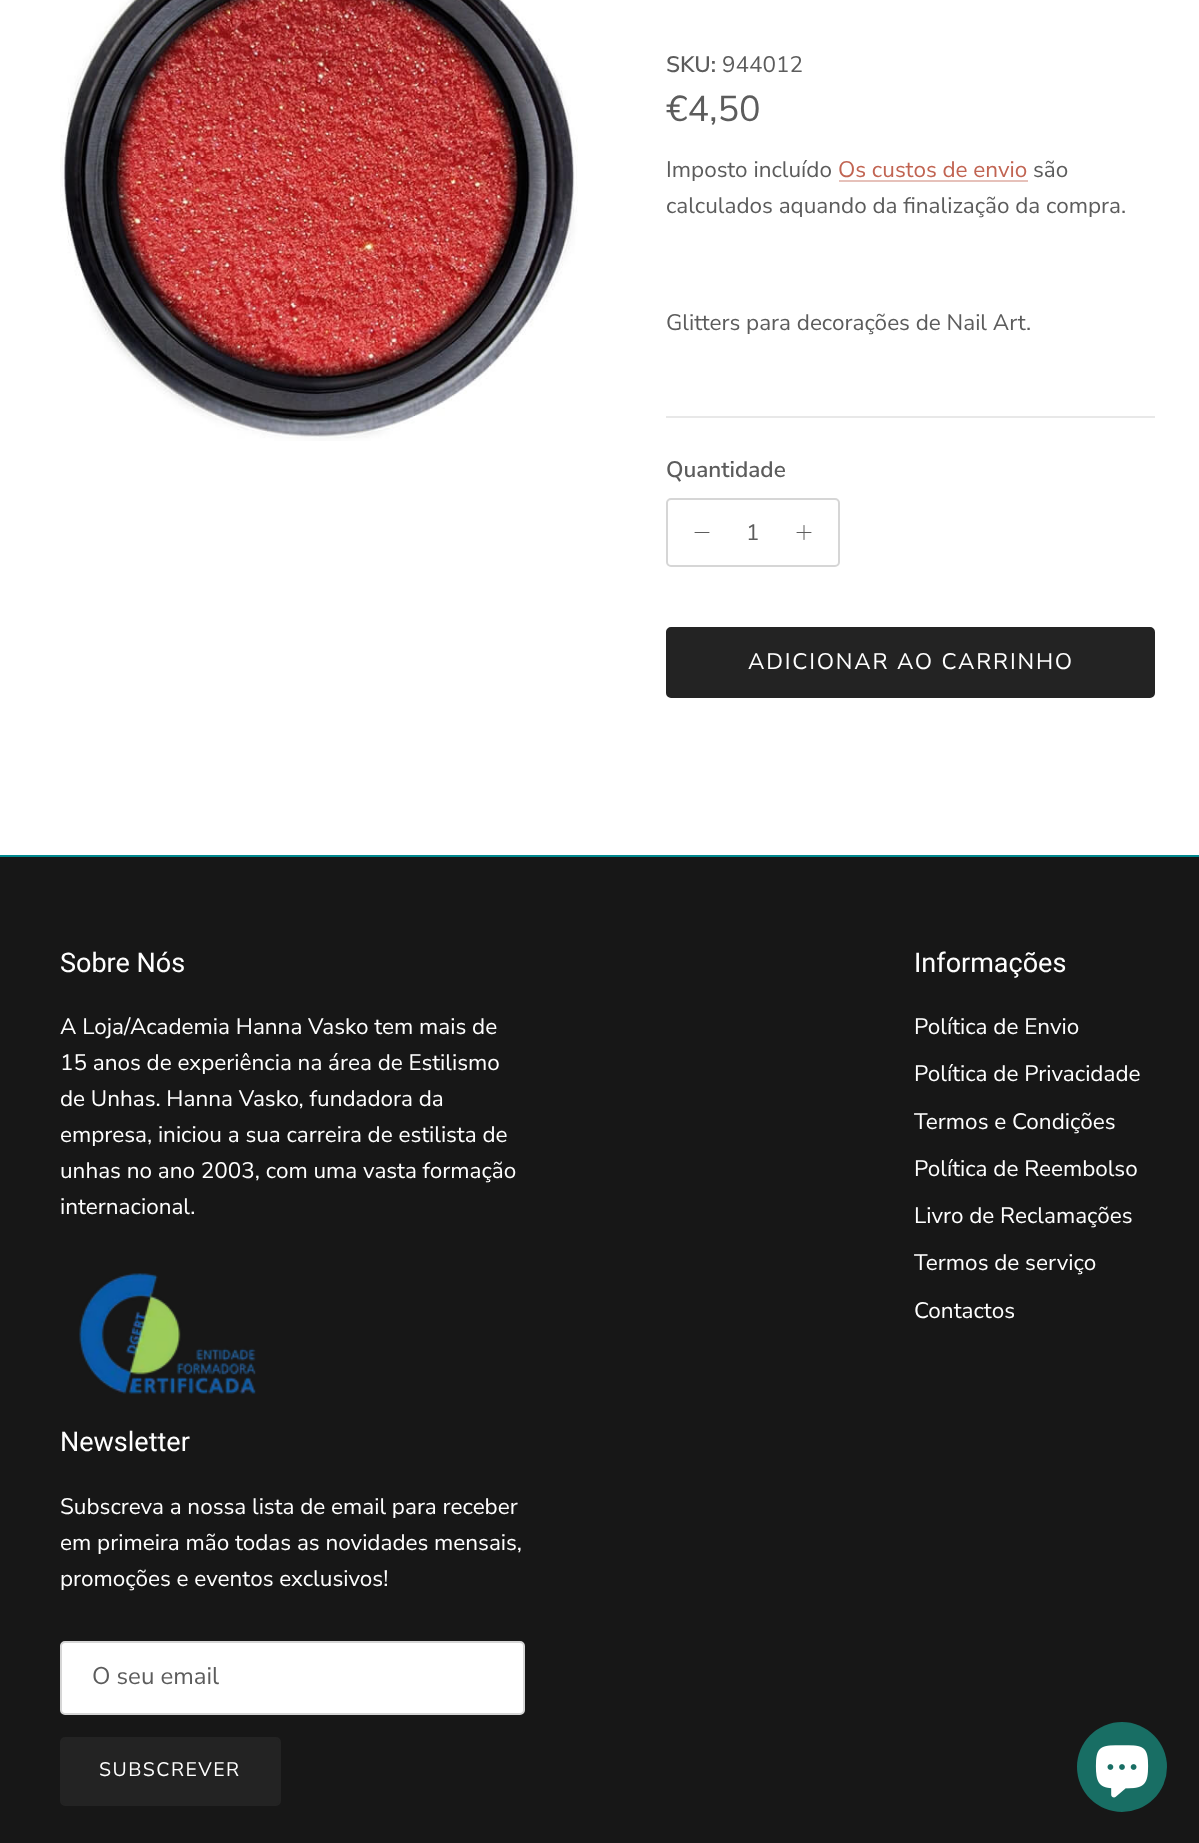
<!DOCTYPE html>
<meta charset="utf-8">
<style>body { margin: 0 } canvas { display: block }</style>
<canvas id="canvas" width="1199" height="1843"></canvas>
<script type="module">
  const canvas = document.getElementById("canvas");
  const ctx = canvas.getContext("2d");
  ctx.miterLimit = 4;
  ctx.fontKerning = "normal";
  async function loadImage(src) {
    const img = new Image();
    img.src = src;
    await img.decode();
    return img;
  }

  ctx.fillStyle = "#ffffff";
  ctx.fillRect(0, 0, 1199, 1843);
  ctx.drawImage(await loadImage("img1.png"), 60, 0, 518, 441);
  ctx.font = "600 22.5px Nunito Sans";
  ctx.fillStyle = "#5c5c5c";
  ctx.fillText("SKU:", 666, 72);
  ctx.font = "22.5px Nunito Sans";
  ctx.fillText("944012", 722, 72);
  ctx.font = "36px Nunito Sans";
  ctx.fillText("€4,50", 666, 121);
  ctx.font = "22.5px Nunito Sans";
  ctx.fillText("Imposto incluído", 666, 177);
  ctx.fillStyle = "#c16452";
  ctx.fillText("Os custos de envio", 838, 177);
  ctx.fillStyle = "#e6c1ba";
  ctx.fillRect(839, 180, 189, 2);
  ctx.fillStyle = "#5c5c5c";
  ctx.fillText("são", 1033, 177);
  ctx.fillText("calculados aquando da finalização da compra.", 666, 213);
  ctx.fillText("Glitters para decorações de Nail Art.", 666, 330);
  ctx.fillStyle = "#e8e8e8";
  ctx.fillRect(666, 416, 489, 2);
  ctx.font = "600 22.5px Nunito Sans";
  ctx.fillStyle = "#5c5c5c";
  ctx.fillText("Quantidade", 666, 477);
  ctx.beginPath();
  ctx.roundRect(667, 499, 172, 67, 4);
  ctx.strokeStyle = "#d6d6d6";
  ctx.lineWidth = 2;
  ctx.stroke();
  ctx.beginPath();
  ctx.moveTo(695, 532.5);
  ctx.lineTo(709, 532.5);
  ctx.strokeStyle = "#5c5c5c";
  ctx.lineWidth = 1;
  ctx.lineCap = "round";
  ctx.lineJoin = "round";
  ctx.stroke();
  ctx.font = "22.5px Nunito Sans";
  ctx.fillText("1", 746, 540);
  ctx.beginPath();
  ctx.moveTo(804, 525.5);
  ctx.lineTo(804, 539.5);
  ctx.moveTo(797, 532.5);
  ctx.lineTo(811, 532.5);
  ctx.stroke();
  ctx.fillStyle = "#232323";
  ctx.beginPath();
  ctx.roundRect(667, 628, 487, 69, 4);
  ctx.fill();
  ctx.strokeStyle = "#232323";
  ctx.lineWidth = 2;
  ctx.lineJoin = "miter";
  ctx.stroke();
  ctx.letterSpacing = "1.8px";
  ctx.fillStyle = "#ffffff";
  ctx.fillText("ADICIONAR AO CARRINHO", 748, 669);
  ctx.fillStyle = "#171717";
  ctx.fillRect(0, 857, 1199, 986);
  ctx.fillStyle = "#00898f";
  ctx.fillRect(0, 855, 1199, 2);
  ctx.letterSpacing = "0px";
  ctx.font = "27px Roboto";
  ctx.fillStyle = "#ffffff";
  ctx.fillText("Sobre Nós", 60, 972);
  ctx.font = "22.5px Nunito Sans";
  ctx.fillText("A Loja/Academia Hanna Vasko tem mais de", 60, 1034);
  ctx.fillText("15 anos de experiência na área de Estilismo", 60, 1070);
  ctx.fillText("de Unhas. Hanna Vasko, fundadora da", 60, 1106);
  ctx.fillText("empresa, iniciou a sua carreira de estilista de", 60, 1142);
  ctx.fillText("unhas no ano 2003, com uma vasta formação", 60, 1178);
  ctx.fillText("internacional.", 60, 1214);
  ctx.drawImage(await loadImage("img2.png"), 79, 1273, 177, 121);
  ctx.font = "27px Roboto";
  ctx.fillText("Informações", 914, 972);
  ctx.font = "22.5px Nunito Sans";
  ctx.fillText("Política de Envio", 914, 1034);
  ctx.fillText("Política de Privacidade", 914, 1081);
  ctx.fillText("Termos e Condições", 914, 1129);
  ctx.fillText("Política de Reembolso", 914, 1176);
  ctx.fillText("Livro de Reclamações", 914, 1223);
  ctx.fillText("Termos de serviço", 914, 1270);
  ctx.fillText("Contactos", 914, 1318);
  ctx.font = "27px Roboto";
  ctx.fillText("Newsletter", 60, 1451);
  ctx.font = "22.5px Nunito Sans";
  ctx.fillText("Subscreva a nossa lista de email para receber", 60, 1514);
  ctx.fillText("em primeira mão todas as novidades mensais,", 60, 1550);
  ctx.fillText("promoções e eventos exclusivos!", 60, 1586);
  ctx.beginPath();
  ctx.roundRect(61, 1642, 463, 72, 4);
  ctx.fill();
  ctx.strokeStyle = "#d6d6d6";
  ctx.stroke();
  ctx.font = "24px Nunito Sans";
  ctx.fillStyle = "#5c5c5c";
  ctx.fillText("O seu email", 92, 1684);
  ctx.fillStyle = "#232323";
  ctx.beginPath();
  ctx.roundRect(61, 1738, 219, 67, 4);
  ctx.fill();
  ctx.strokeStyle = "#232323";
  ctx.stroke();
  ctx.letterSpacing = "1.5px";
  ctx.font = "19.5px Nunito Sans";
  ctx.fillStyle = "#ffffff";
  ctx.fillText("SUBSCREVER", 99, 1776);
  ctx.fillStyle = "#186e64";
  ctx.beginPath();
  ctx.arc(1122, 1767, 45, 0, Math.PI * 2);
  ctx.fill();
  ctx.drawImage(await loadImage("img3.png"), 1095, 1745, 54, 53);
</script>
